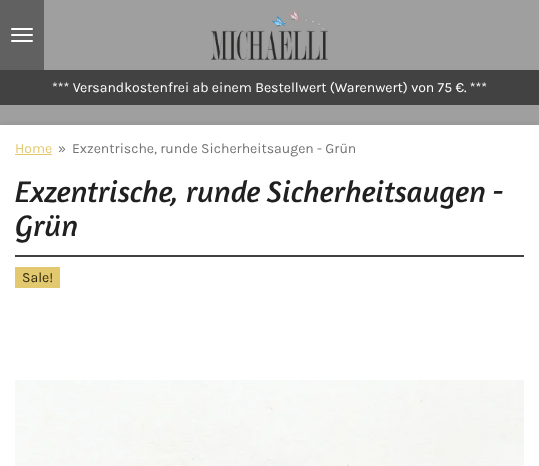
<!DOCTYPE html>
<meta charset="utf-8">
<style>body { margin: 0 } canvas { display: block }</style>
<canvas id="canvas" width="539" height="466"></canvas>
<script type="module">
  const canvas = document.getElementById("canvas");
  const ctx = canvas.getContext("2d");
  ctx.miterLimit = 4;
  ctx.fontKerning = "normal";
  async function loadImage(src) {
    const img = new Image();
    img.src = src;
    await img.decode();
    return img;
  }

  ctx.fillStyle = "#9f9f9f";
  ctx.fillRect(0, 0, 539, 466);
  ctx.fillStyle = "#616161";
  ctx.fillRect(0, 0, 44, 70);
  ctx.fillStyle = "#ffffff";
  ctx.beginPath();
  ctx.roundRect(11, 34, 22, 2, 1);
  ctx.fill();
  ctx.beginPath();
  ctx.roundRect(11, 28, 22, 2, 1);
  ctx.fill();
  ctx.beginPath();
  ctx.roundRect(11, 40, 22, 2, 1);
  ctx.fill();
  ctx.drawImage(await loadImage("img1.png"), 211, 10, 117, 50);
  ctx.fillStyle = "#424242";
  ctx.fillRect(0, 70, 539, 35);
  ctx.font = "14px Karla";
  ctx.fillStyle = "#ffffff";
  ctx.fillText("*** Versandkostenfrei ab einem Bestellwert (Warenwert) von 75 €. ***", 52, 92);
  ctx.fillStyle = "rgba(0, 0, 0, 0.1)";
  ctx.filter = "blur(2.5px)";
  ctx.beginPath();
  ctx.rect(0, 125, 539, 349);
  ctx.fill();
  ctx.filter = "none";
  ctx.fillStyle = "#ffffff";
  ctx.fillRect(0, 125, 539, 341);
  ctx.fillStyle = "#e2c86f";
  ctx.fillText("Home", 15, 153);
  ctx.fillRect(15, 154, 37, 1);
  ctx.fillStyle = "#737373";
  ctx.fillText("»", 58, 153);
  ctx.fillText("Exzentrische, runde Sicherheitsaugen - Grün", 72, 153);
  ctx.fillStyle = "#424242";
  ctx.fillRect(15, 255, 509, 2);
  ctx.font = "italic 30.5px Amaranth";
  ctx.fillStyle = "#202020";
  ctx.fillText("Exzentrische, runde Sicherheitsaugen -", 15, 202);
  ctx.fillText("Grün", 15, 236);
  ctx.fillStyle = "#e2c86f";
  ctx.fillRect(15, 267, 45, 21);
  ctx.font = "14px Karla";
  ctx.fillStyle = "#2f2709";
  ctx.fillText("Sale!", 22, 282);
  ctx.drawImage(await loadImage("img2.png"), 15, 380, 509, 86);
</script>
